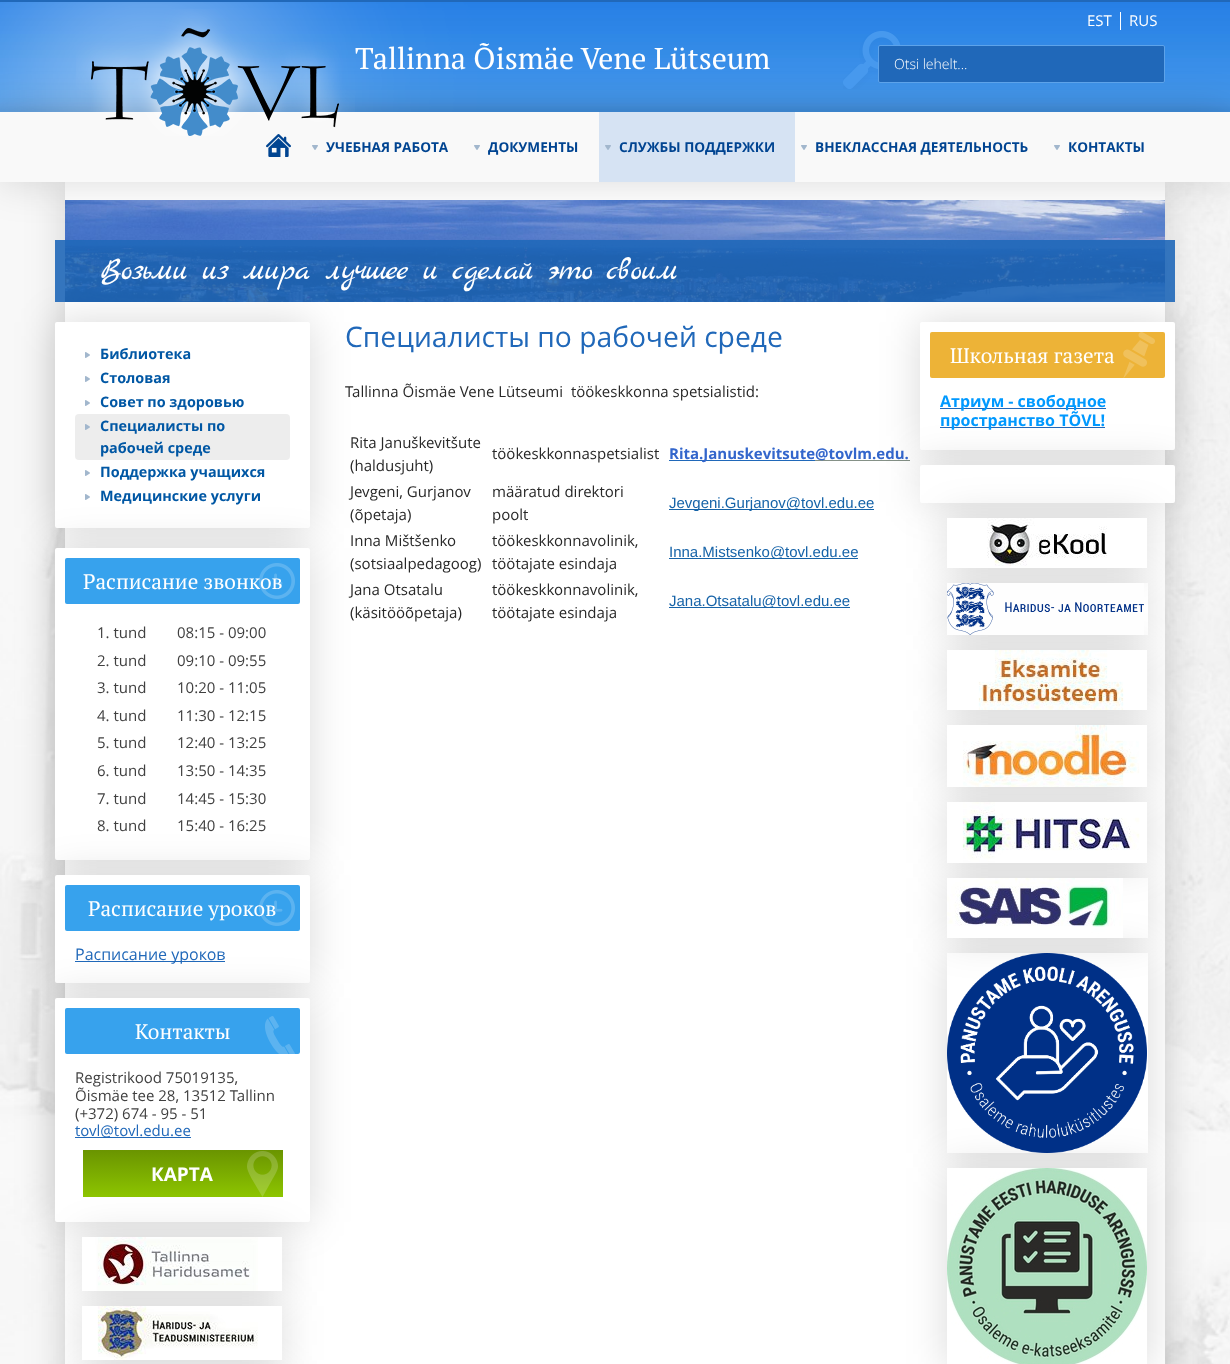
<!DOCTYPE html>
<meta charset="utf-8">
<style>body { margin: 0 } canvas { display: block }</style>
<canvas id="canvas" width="1230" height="1364"></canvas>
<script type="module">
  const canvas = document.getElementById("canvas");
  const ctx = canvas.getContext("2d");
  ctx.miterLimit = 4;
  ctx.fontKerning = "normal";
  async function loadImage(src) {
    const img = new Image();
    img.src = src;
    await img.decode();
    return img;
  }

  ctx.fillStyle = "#ffffff";
  ctx.fillRect(0, 0, 1230, 1364);
  ctx.drawImage(await loadImage("img1.png"), 0, 182, 1230, 1182);
  ctx.drawImage(await loadImage("img2.png"), 0, 2, 1230, 110);
  ctx.fillStyle = "#2068b9";
  ctx.fillRect(0, 0, 1230, 2);
  ctx.fillStyle = "rgba(0, 0, 0, 0.15)";
  ctx.filter = "blur(20px)";
  ctx.beginPath();
  ctx.rect(65, 182, 1100, 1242);
  ctx.fill();
  ctx.filter = "none";
  ctx.fillStyle = "#ffffff";
  ctx.fillRect(65, 182, 1100, 1182);
  ctx.fillStyle = "rgba(0, 0, 0, 0.15)";
  ctx.filter = "blur(20px)";
  ctx.beginPath();
  ctx.roundRect(55, 322, 255, 206, 2);
  ctx.fill();
  ctx.filter = "none";
  ctx.fillStyle = "#859187";
  ctx.fillRect(815, 460, 95, 1);
  ctx.fillStyle = "#1663a8";
  ctx.fillRect(669, 509, 205, 1);
  ctx.fillStyle = "rgba(0, 0, 0, 0.15)";
  ctx.filter = "blur(20px)";
  ctx.beginPath();
  ctx.roundRect(920, 322, 255, 128, 2);
  ctx.fill();
  ctx.filter = "none";
  ctx.drawImage(await loadImage("img8.png"), 65, 200, 1100, 102);
  ctx.fillStyle = "rgba(32, 104, 185, 0.9)";
  ctx.fillRect(55, 240, 1120, 62);
  ctx.fillStyle = "rgba(0, 0, 0, 0.15)";
  ctx.filter = "blur(20px)";
  ctx.beginPath();
  ctx.rect(0, 112, 1230, 70);
  ctx.fill();
  ctx.filter = "none";
  ctx.fillStyle = "#f9f9f9";
  ctx.fillRect(0, 112, 1230, 70);
  ctx.drawImage(await loadImage("img5.png"), 266, 134, 25, 23);
  ctx.drawImage(await loadImage("img3.png"), 76, 9, 279, 127);
  ctx.font = "15px Open Sans";
  ctx.fillStyle = "#ffffff";
  ctx.fillText("EST", 1087, 26);
  ctx.fillRect(1120, 12, 1, 18);
  ctx.fillText("RUS", 1129, 26);
  ctx.font = "30.1px PT Serif";
  ctx.fillText("Tallinna Õismäe Vene Lütseum", 355, 69);
  ctx.drawImage(await loadImage("img4.png"), 843, 31, 58, 58);
  ctx.fillStyle = "#2068b9";
  ctx.beginPath();
  ctx.roundRect(878.5, 45.5, 286, 37, 1.5);
  ctx.fill();
  ctx.strokeStyle = "#5da3ea";
  ctx.stroke();
  ctx.font = "300 14px Open Sans";
  ctx.fillStyle = "#ffffff";
  ctx.fillText("Otsi lehelt...", 894, 69);
  ctx.drawImage(await loadImage("img6.png"), 312, 145, 6, 5);
  ctx.font = "bold 13.6px Open Sans";
  ctx.fillStyle = "#004491";
  ctx.fillText("УЧЕБНАЯ РАБОТА", 326, 152);
  ctx.drawImage(await loadImage("img6.png"), 474, 145, 6, 5);
  ctx.fillText("ДОКУМЕНТЫ", 488, 152);
  ctx.fillStyle = "#d6e3f3";
  ctx.fillRect(599, 112, 196, 70);
  ctx.drawImage(await loadImage("img7.png"), 605, 145, 6, 5);
  ctx.fillStyle = "#004491";
  ctx.fillText("СЛУЖБЫ ПОДДЕРЖКИ", 619, 152);
  ctx.drawImage(await loadImage("img6.png"), 801, 145, 6, 5);
  ctx.fillText("ВНЕКЛАССНАЯ ДЕЯТЕЛЬНОСТЬ", 815, 152);
  ctx.drawImage(await loadImage("img6.png"), 1054, 145, 6, 5);
  ctx.fillText("КОНТАКТЫ", 1068, 152);
  ctx.letterSpacing = "-1px";
  ctx.font = "32px Marck Script";
  ctx.fillStyle = "#ffffff";
  ctx.fillText("Возьми из мира лучшее и сделай это своим", 100, 279);
  ctx.beginPath();
  ctx.roundRect(55, 322, 255, 206, 2);
  ctx.fill();
  ctx.drawImage(await loadImage("img9.png"), 85, 352, 5, 6);
  ctx.letterSpacing = "0px";
  ctx.font = "bold 14.4px Open Sans";
  ctx.fillStyle = "#0057a4";
  ctx.fillText("Библиотека", 100, 359);
  ctx.drawImage(await loadImage("img9.png"), 85, 376, 5, 6);
  ctx.fillText("Столовая", 100, 383);
  ctx.drawImage(await loadImage("img9.png"), 85, 400, 5, 6);
  ctx.fillText("Совет по здоровью", 100, 407);
  ctx.fillStyle = "#ededed";
  ctx.beginPath();
  ctx.roundRect(75, 414, 215, 46, 4);
  ctx.fill();
  ctx.drawImage(await loadImage("img10.png"), 85, 424, 5, 6);
  ctx.fillStyle = "#0057a4";
  ctx.fillText("Специалисты по", 100, 431);
  ctx.fillText("рабочей среде", 100, 453);
  ctx.drawImage(await loadImage("img9.png"), 85, 470, 5, 6);
  ctx.fillText("Поддержка учащихся", 100, 477);
  ctx.drawImage(await loadImage("img9.png"), 85, 494, 5, 6);
  ctx.fillStyle = "rgba(0, 0, 0, 0.15)";
  ctx.filter = "blur(20px)";
  ctx.beginPath();
  ctx.roundRect(55, 548, 255, 312, 2);
  ctx.fill();
  ctx.filter = "none";
  ctx.fillStyle = "#0057a4";
  ctx.fillText("Медицинские услуги", 100, 501);
  ctx.fillStyle = "#ffffff";
  ctx.beginPath();
  ctx.roundRect(55, 548, 255, 312, 2);
  ctx.fill();
  ctx.fillStyle = "#37a2ed";
  ctx.beginPath();
  ctx.roundRect(65, 558, 235, 46, 2);
  ctx.fill();
  ctx.drawImage(await loadImage("img11.png"), 259, 563, 36, 36);
  ctx.font = "21px PT Serif";
  ctx.fillStyle = "#ffffff";
  ctx.fillText("Расписание звонков", 83, 589);
  ctx.font = "15px Open Sans";
  ctx.fillStyle = "#404040";
  ctx.fillText("1. tund", 97, 638);
  ctx.fillText("08:15 - 09:00", 177, 638);
  ctx.fillText("2. tund", 97, 666);
  ctx.fillText("09:10 - 09:55", 177, 666);
  ctx.fillText("3. tund", 97, 693);
  ctx.fillText("10:20 - 11:05", 177, 693);
  ctx.fillText("4. tund", 97, 721);
  ctx.fillText("11:30 - 12:15", 177, 721);
  ctx.fillText("5. tund", 97, 748);
  ctx.fillText("12:40 - 13:25", 177, 748);
  ctx.fillText("6. tund", 97, 776);
  ctx.fillText("13:50 - 14:35", 177, 776);
  ctx.fillText("7. tund", 97, 804);
  ctx.fillText("14:45 - 15:30", 177, 804);
  ctx.fillStyle = "rgba(0, 0, 0, 0.15)";
  ctx.filter = "blur(20px)";
  ctx.beginPath();
  ctx.roundRect(55, 875, 255, 108, 2);
  ctx.fill();
  ctx.filter = "none";
  ctx.fillStyle = "#404040";
  ctx.fillText("8. tund", 97, 831);
  ctx.fillText("15:40 - 16:25", 177, 831);
  ctx.fillStyle = "#ffffff";
  ctx.beginPath();
  ctx.roundRect(55, 875, 255, 108, 2);
  ctx.fill();
  ctx.fillStyle = "#37a2ed";
  ctx.beginPath();
  ctx.roundRect(65, 885, 235, 46, 2);
  ctx.fill();
  ctx.drawImage(await loadImage("img11.png"), 259, 890, 36, 36);
  ctx.font = "21px PT Serif";
  ctx.fillStyle = "#ffffff";
  ctx.fillText("Расписание уроков", 88, 916);
  ctx.fillStyle = "rgba(0, 0, 0, 0.15)";
  ctx.filter = "blur(20px)";
  ctx.beginPath();
  ctx.roundRect(55, 998, 255, 224, 2);
  ctx.fill();
  ctx.filter = "none";
  ctx.fillStyle = "#2068b9";
  ctx.fillRect(75, 961, 150, 1);
  ctx.font = "16px Open Sans";
  ctx.fillText("Расписание уроков", 75, 960);
  ctx.fillStyle = "#ffffff";
  ctx.beginPath();
  ctx.roundRect(55, 998, 255, 224, 2);
  ctx.fill();
  ctx.fillStyle = "#37a2ed";
  ctx.beginPath();
  ctx.roundRect(65, 1008, 235, 46, 2);
  ctx.fill();
  ctx.drawImage(await loadImage("img12.png"), 265, 1016, 30, 38);
  ctx.font = "21px PT Serif";
  ctx.fillStyle = "#ffffff";
  ctx.fillText("Контакты", 135, 1039);
  ctx.font = "15px Open Sans";
  ctx.fillStyle = "#404040";
  ctx.fillText("Registrikood 75019135,", 75, 1083);
  ctx.fillText("Õismäe tee 28, 13512 Tallinn", 75, 1101);
  ctx.fillText("(+372) 674 - 95 - 51", 75, 1119);
  ctx.fillStyle = "#2068b9";
  ctx.fillRect(75, 1137, 116, 1);
  ctx.fillText("tovl@tovl.edu.ee", 75, 1136);
  ctx.drawImage(await loadImage("img13.png"), 83, 1150, 200, 47);
  ctx.fillStyle = "rgba(0, 0, 0, 0.15)";
  ctx.filter = "blur(20px)";
  ctx.beginPath();
  ctx.rect(82, 1237, 201, 54);
  ctx.fill();
  ctx.filter = "none";
  ctx.font = "bold 19px Open Sans";
  ctx.fillStyle = "#ffffff";
  ctx.fillText("КАРТА", 151, 1181);
  ctx.fillStyle = "rgba(0, 0, 0, 0.15)";
  ctx.filter = "blur(20px)";
  ctx.beginPath();
  ctx.rect(82, 1306, 201, 54);
  ctx.fill();
  ctx.filter = "none";
  ctx.drawImage(await loadImage("img14.png"), 82, 1237, 200, 54);
  ctx.filter = "blur(20px)";
  ctx.beginPath();
  ctx.rect(82, 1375, 201, 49);
  ctx.fill();
  ctx.filter = "none";
  ctx.drawImage(await loadImage("img15.png"), 82, 1306, 200, 54);
  ctx.font = "28.25px Open Sans";
  ctx.fillStyle = "#2068b9";
  ctx.fillText("Специалисты по рабочей среде", 345, 347);
  ctx.font = "15px Open Sans";
  ctx.fillStyle = "#282828";
  ctx.fillText("Tallinna Õismäe Vene Lütseumi  töökeskkonna spetsialistid:", 345, 397);
  ctx.fillText("Rita Januškevitšute", 350, 448);
  ctx.fillText("(haldusjuht)", 350, 471);
  ctx.fillText("töökeskkonnaspetsialist", 492, 459);
  ctx.fillStyle = "#2068b9";
  ctx.fillRect(669, 460, 146, 1);
  ctx.font = "bold 15px Open Sans";
  ctx.fillStyle = "#3366cc";
  ctx.fillText("Rita.Januskevitsute", 669, 459);
  ctx.fillText("@tovlm.edu.", 815, 459);
  ctx.font = "15px Open Sans";
  ctx.fillStyle = "#282828";
  ctx.fillText("Jevgeni, Gurjanov", 350, 497);
  ctx.fillText("(õpetaja)", 350, 520);
  ctx.fillText("määratud direktori", 492, 497);
  ctx.fillText("poolt", 492, 520);
  ctx.font = "15px Liberation Sans";
  ctx.fillStyle = "#1663a8";
  ctx.fillText("Jevgeni.Gurjanov@tovl.edu.ee", 669, 508);
  ctx.font = "15px Open Sans";
  ctx.fillStyle = "#282828";
  ctx.fillText("Inna Mištšenko", 350, 546);
  ctx.fillText("(sotsiaalpedagoog)", 350, 569);
  ctx.fillText("töökeskkonnavolinik,", 492, 546);
  ctx.fillText("töötajate esindaja", 492, 569);
  ctx.fillStyle = "#1663a8";
  ctx.fillRect(669, 558, 189, 1);
  ctx.font = "15px Liberation Sans";
  ctx.fillText("Inna.Mistsenko@tovl.edu.ee", 669, 557);
  ctx.font = "15px Open Sans";
  ctx.fillStyle = "#282828";
  ctx.fillText("Jana Otsatalu", 350, 595);
  ctx.fillText("(käsitööõpetaja)", 350, 618);
  ctx.fillText("töökeskkonnavolinik,", 492, 595);
  ctx.fillText("töötajate esindaja", 492, 618);
  ctx.fillStyle = "#1663a8";
  ctx.fillRect(669, 607, 181, 1);
  ctx.font = "15px Liberation Sans";
  ctx.fillText("Jana.Otsatalu@tovl.edu.ee", 669, 606);
  ctx.fillStyle = "#ffffff";
  ctx.beginPath();
  ctx.roundRect(920, 322, 255, 128, 2);
  ctx.fill();
  ctx.fillStyle = "#edb337";
  ctx.beginPath();
  ctx.roundRect(930, 332, 235, 46, 2);
  ctx.fill();
  ctx.drawImage(await loadImage("img16.png"), 1123, 332, 32, 46);
  ctx.font = "21px PT Serif";
  ctx.fillStyle = "#ffffff";
  ctx.fillText("Школьная газета", 950, 363);
  ctx.fillStyle = "rgba(0, 0, 0, 0.15)";
  ctx.filter = "blur(20px)";
  ctx.beginPath();
  ctx.roundRect(920, 465, 255, 38, 2);
  ctx.fill();
  ctx.filter = "none";
  ctx.fillStyle = "#2068b9";
  ctx.fillRect(940, 408, 166, 1);
  ctx.font = "bold 16px Open Sans";
  ctx.fillStyle = "#0099ff";
  ctx.fillText("Атриум - свободное", 940, 407);
  ctx.fillStyle = "#2068b9";
  ctx.fillRect(940, 427, 165, 1);
  ctx.fillStyle = "#0099ff";
  ctx.fillText("пространство TÕVL!", 940, 426);
  ctx.fillStyle = "#ffffff";
  ctx.beginPath();
  ctx.roundRect(920, 465, 255, 38, 2);
  ctx.fill();
  ctx.fillStyle = "rgba(0, 0, 0, 0.15)";
  ctx.filter = "blur(20px)";
  ctx.beginPath();
  ctx.rect(947, 518, 201, 50);
  ctx.fill();
  ctx.filter = "none";
  ctx.save();
  ctx.beginPath();
  ctx.moveTo(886, 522);
  ctx.lineTo(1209, 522);
  ctx.lineTo(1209, 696);
  ctx.lineTo(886, 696);
  ctx.closePath();
  ctx.moveTo(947, 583);
  ctx.lineTo(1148, 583);
  ctx.lineTo(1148, 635);
  ctx.lineTo(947, 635);
  ctx.closePath();
  ctx.clip("evenodd");
  ctx.filter = "blur(20px)";
  ctx.beginPath();
  ctx.rect(947, 583, 201, 52);
  ctx.fill();
  ctx.filter = "none";
  ctx.restore();
  ctx.drawImage(await loadImage("img17.png"), 947, 518, 200, 50);
  ctx.filter = "blur(20px)";
  ctx.beginPath();
  ctx.rect(947, 650, 201, 60);
  ctx.fill();
  ctx.filter = "none";
  ctx.drawImage(await loadImage("img18.png"), 947, 583, 197, 52);
  ctx.filter = "blur(20px)";
  ctx.beginPath();
  ctx.rect(947, 725, 201, 62);
  ctx.fill();
  ctx.filter = "none";
  ctx.drawImage(await loadImage("img19.png"), 947, 650, 200, 60);
  ctx.filter = "blur(20px)";
  ctx.beginPath();
  ctx.rect(947, 802, 201, 61);
  ctx.fill();
  ctx.filter = "none";
  ctx.drawImage(await loadImage("img20.png"), 947, 725, 200, 62);
  ctx.save();
  ctx.beginPath();
  ctx.moveTo(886, 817);
  ctx.lineTo(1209, 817);
  ctx.lineTo(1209, 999);
  ctx.lineTo(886, 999);
  ctx.closePath();
  ctx.moveTo(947, 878);
  ctx.lineTo(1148, 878);
  ctx.lineTo(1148, 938);
  ctx.lineTo(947, 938);
  ctx.closePath();
  ctx.clip("evenodd");
  ctx.filter = "blur(20px)";
  ctx.beginPath();
  ctx.rect(947, 878, 201, 60);
  ctx.fill();
  ctx.filter = "none";
  ctx.restore();
  ctx.drawImage(await loadImage("img21.png"), 947, 802, 200, 61);
  ctx.save();
  ctx.beginPath();
  ctx.moveTo(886, 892);
  ctx.lineTo(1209, 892);
  ctx.lineTo(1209, 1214);
  ctx.lineTo(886, 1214);
  ctx.closePath();
  ctx.moveTo(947, 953);
  ctx.lineTo(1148, 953);
  ctx.lineTo(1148, 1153);
  ctx.lineTo(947, 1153);
  ctx.closePath();
  ctx.clip("evenodd");
  ctx.filter = "blur(20px)";
  ctx.beginPath();
  ctx.rect(947, 953, 201, 200);
  ctx.fill();
  ctx.filter = "none";
  ctx.restore();
  ctx.drawImage(await loadImage("img22.png"), 947, 878, 176, 60);
  ctx.filter = "blur(20px)";
  ctx.beginPath();
  ctx.rect(947, 1168, 201, 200);
  ctx.fill();
  ctx.filter = "none";
  ctx.drawImage(await loadImage("img23.png"), 947, 953, 200, 200);
  ctx.drawImage(await loadImage("img24.png"), 947, 1168, 200, 196);
</script>
